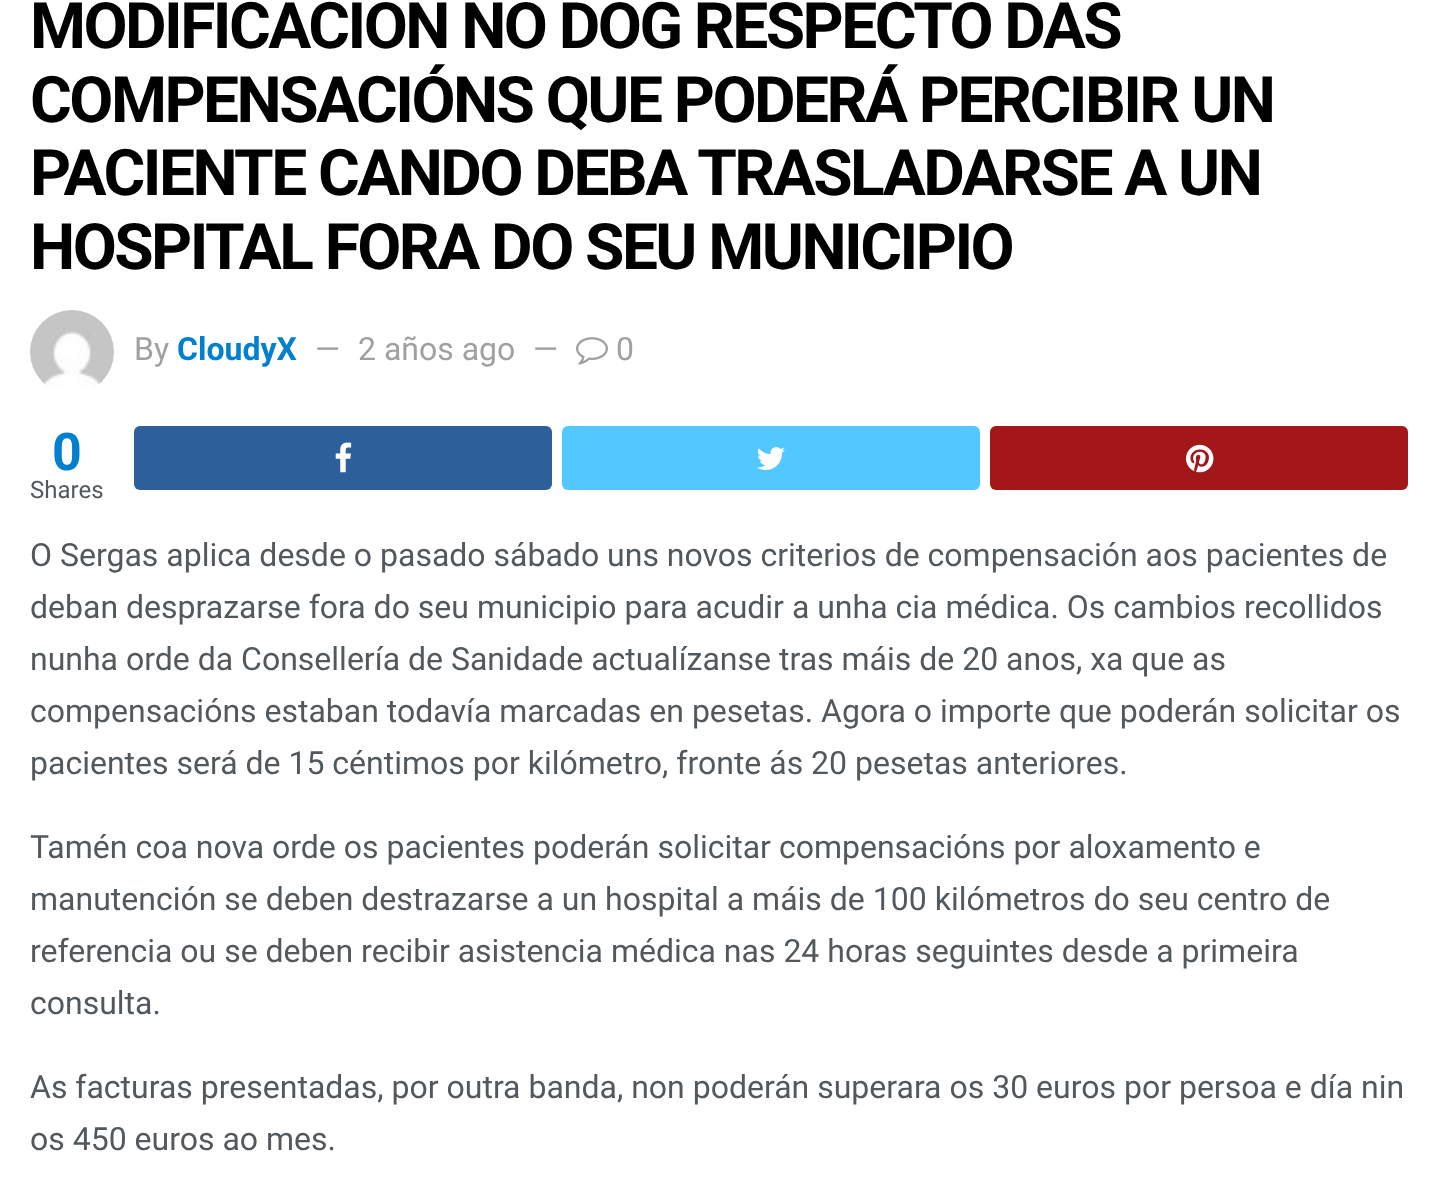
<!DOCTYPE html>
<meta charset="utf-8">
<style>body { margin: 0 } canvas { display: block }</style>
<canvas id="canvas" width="1438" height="1189"></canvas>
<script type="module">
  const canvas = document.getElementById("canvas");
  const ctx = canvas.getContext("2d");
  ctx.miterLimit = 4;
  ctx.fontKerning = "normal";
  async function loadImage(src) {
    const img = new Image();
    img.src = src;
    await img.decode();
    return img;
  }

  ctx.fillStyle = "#ffffff";
  ctx.fillRect(0, 0, 1438, 1189);
  ctx.letterSpacing = "-2.55px";
  ctx.font = "bold 64px Roboto";
  ctx.fillStyle = "#000000";
  ctx.fillText("MODIFICACIÓN NO DOG RESPECTO DAS", 30, 48);
  ctx.fillText("COMPENSACIÓNS QUE PODERÁ PERCIBIR UN", 30, 122);
  ctx.fillText("PACIENTE CANDO DEBA TRASLADARSE A UN", 30, 195);
  ctx.fillText("HOSPITAL FORA DO SEU MUNICIPIO", 30, 269);
  ctx.drawImage(await loadImage("img1.png"), 30, 310, 84, 77);
  ctx.letterSpacing = "0px";
  ctx.font = "32px Roboto";
  ctx.fillStyle = "#a0a0a0";
  ctx.fillText("By", 134, 360);
  ctx.font = "bold 32px Roboto";
  ctx.fillStyle = "#0080ce";
  ctx.fillText("CloudyX", 177, 360);
  ctx.font = "32px Roboto";
  ctx.fillStyle = "#a0a0a0";
  ctx.fillText("—", 315, 360);
  ctx.fillText("2 años ago", 358, 360);
  ctx.fillText("—", 533, 360);
  ctx.drawImage(await loadImage("img2.png"), 576, 337, 32, 28);
  ctx.fillText("0", 616, 360);
  ctx.font = "bold 52px Roboto";
  ctx.fillStyle = "#0080ce";
  ctx.fillText("0", 52, 470);
  ctx.font = "24px Roboto";
  ctx.fillStyle = "#53585c";
  ctx.fillText("Shares", 30, 498);
  ctx.fillStyle = "#2d5f9a";
  ctx.beginPath();
  ctx.roundRect(134, 426, 418, 64, 6);
  ctx.fill();
  ctx.drawImage(await loadImage("img3.png"), 335, 442, 17, 31);
  ctx.fillStyle = "#53c7ff";
  ctx.beginPath();
  ctx.roundRect(562, 426, 418, 64, 6);
  ctx.fill();
  ctx.drawImage(await loadImage("img4.png"), 757, 447, 28, 23);
  ctx.fillStyle = "#a41719";
  ctx.beginPath();
  ctx.roundRect(990, 426, 418, 64, 6);
  ctx.fill();
  ctx.drawImage(await loadImage("img5.png"), 1186, 444, 28, 29);
  ctx.font = "32px Roboto";
  ctx.fillStyle = "#53585c";
  ctx.fillText("O Sergas aplica desde o pasado sábado uns novos criterios de compensación aos pacientes de", 30, 566);
  ctx.fillText("deban desprazarse fora do seu municipio para acudir a unha cia médica. Os cambios recollidos", 30, 618);
  ctx.fillText("nunha orde da Consellería de Sanidade actualízanse tras máis de 20 anos, xa que as", 30, 670);
  ctx.fillText("compensacións estaban todavía marcadas en pesetas. Agora o importe que poderán solicitar os", 30, 722);
  ctx.fillText("pacientes será de 15 céntimos por kilómetro, fronte ás 20 pesetas anteriores.", 30, 774);
  ctx.fillText("Tamén coa nova orde os pacientes poderán solicitar compensacións por aloxamento e", 30, 858);
  ctx.fillText("manutención se deben destrazarse a un hospital a máis de 100 kilómetros do seu centro de", 30, 910);
  ctx.fillText("referencia ou se deben recibir asistencia médica nas 24 horas seguintes desde a primeira", 30, 962);
  ctx.fillText("consulta.", 30, 1014);
  ctx.fillText("As facturas presentadas, por outra banda, non poderán superara os 30 euros por persoa e día nin", 30, 1098);
  ctx.fillText("os 450 euros ao mes.", 30, 1150);
</script>
